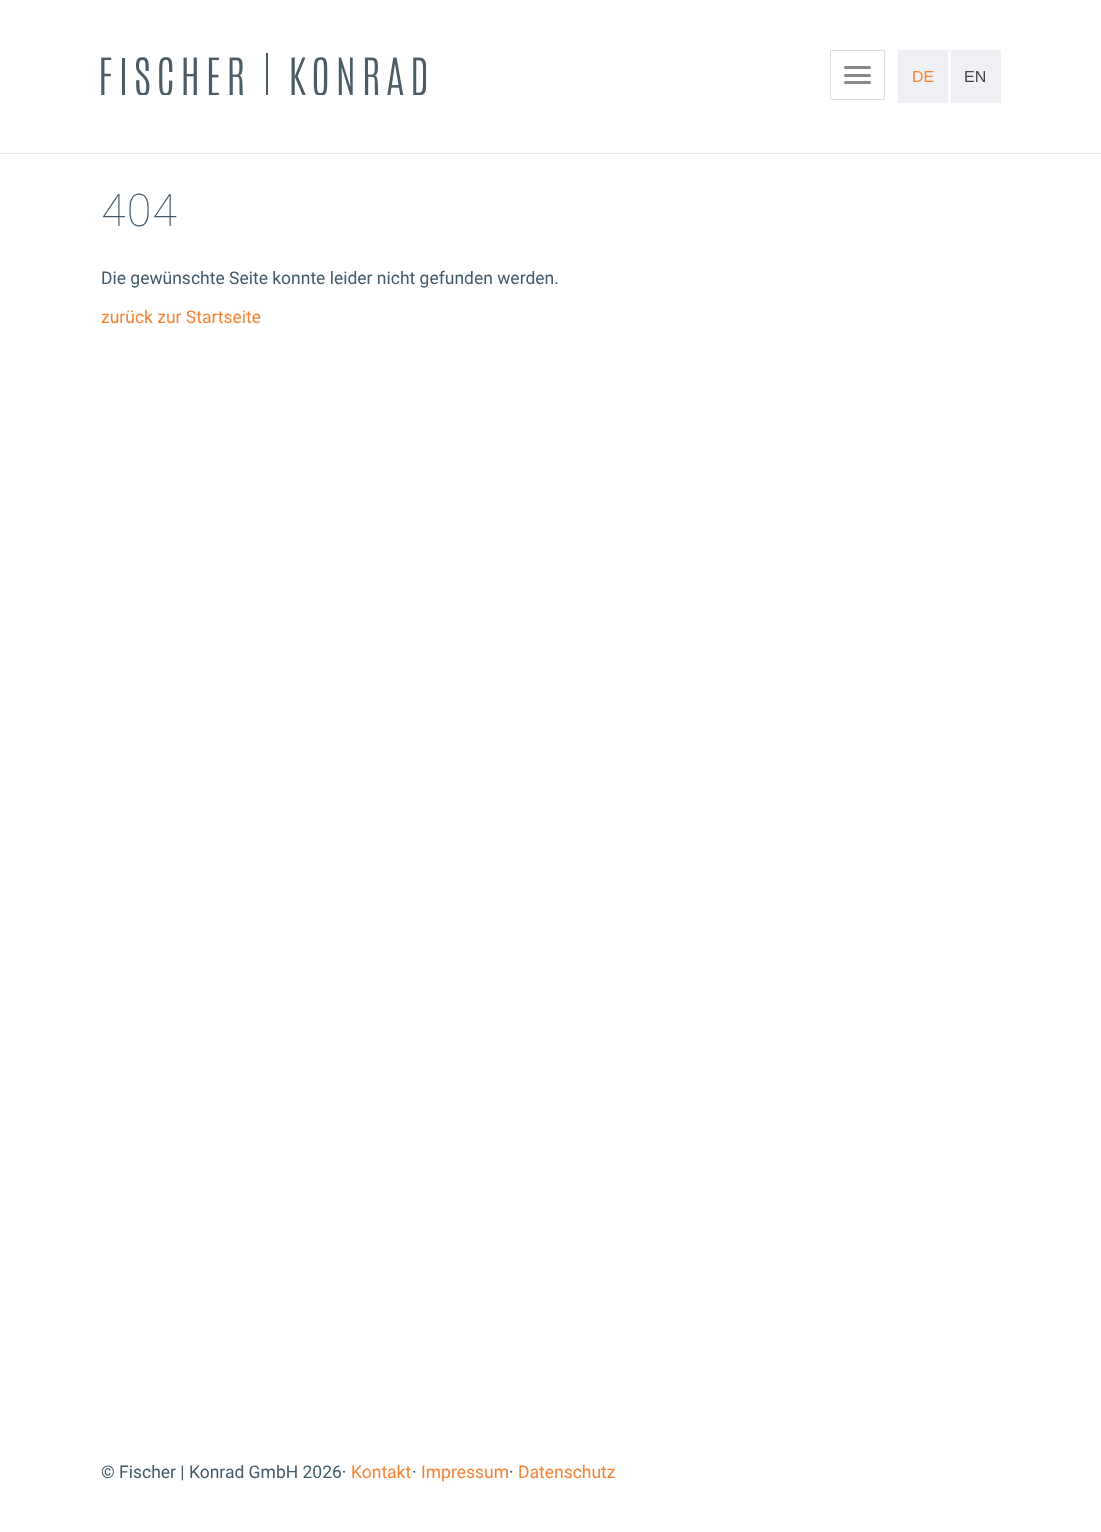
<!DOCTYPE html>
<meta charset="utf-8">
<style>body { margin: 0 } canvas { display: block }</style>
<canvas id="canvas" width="1101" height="1532"></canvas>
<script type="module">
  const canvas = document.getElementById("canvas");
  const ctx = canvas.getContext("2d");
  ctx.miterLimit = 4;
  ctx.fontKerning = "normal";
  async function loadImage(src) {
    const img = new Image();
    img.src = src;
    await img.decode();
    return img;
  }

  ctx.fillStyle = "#ffffff";
  ctx.fillRect(0, 0, 1101, 1532);
  ctx.fillStyle = "#e7e7e7";
  ctx.fillRect(0, 153, 1101, 1);
  ctx.drawImage(await loadImage("img1.png"), 101, 53, 325, 42);
  ctx.beginPath();
  ctx.roundRect(830.5, 50.5, 54, 49, 0.5);
  ctx.strokeStyle = "#dddddd";
  ctx.stroke();
  ctx.fillStyle = "#888888";
  ctx.beginPath();
  ctx.roundRect(844, 66, 27, 3, 1.5);
  ctx.fill();
  ctx.beginPath();
  ctx.roundRect(844, 74, 27, 3, 1.5);
  ctx.fill();
  ctx.beginPath();
  ctx.roundRect(844, 81, 27, 3, 1.5);
  ctx.fill();
  ctx.fillStyle = "#eef0f3";
  ctx.fillRect(898, 50, 103, 53);
  ctx.fillStyle = "#ffffff";
  ctx.fillRect(948, 51, 3, 52);
  ctx.font = "16px Liberation Sans";
  ctx.fillStyle = "#f58233";
  ctx.fillText("DE", 912, 82);
  ctx.fillStyle = "#444444";
  ctx.fillText("EN", 964, 82);
  ctx.letterSpacing = "1px";
  ctx.font = "100 45px Roboto";
  ctx.fillStyle = "#425a69";
  ctx.fillText("404", 101, 226);
  ctx.letterSpacing = "0px";
  ctx.font = "17.5px Roboto";
  ctx.fillText("Die gewünschte Seite konnte leider nicht gefunden werden.", 101, 284);
  ctx.fillStyle = "#f58233";
  ctx.fillText("zurück zur Startseite", 101, 323);
  ctx.fillStyle = "#425a69";
  ctx.fillText("© Fischer | Konrad GmbH 2026·", 101, 1478);
  ctx.fillStyle = "#f58233";
  ctx.fillText("Kontakt", 351, 1478);
  ctx.fillStyle = "#425a69";
  ctx.fillText("·", 412, 1478);
  ctx.fillStyle = "#f58233";
  ctx.fillText("Impressum", 421, 1478);
  ctx.fillStyle = "#425a69";
  ctx.fillText("·", 509, 1478);
  ctx.fillStyle = "#f58233";
  ctx.fillText("Datenschutz", 518, 1478);
</script>
